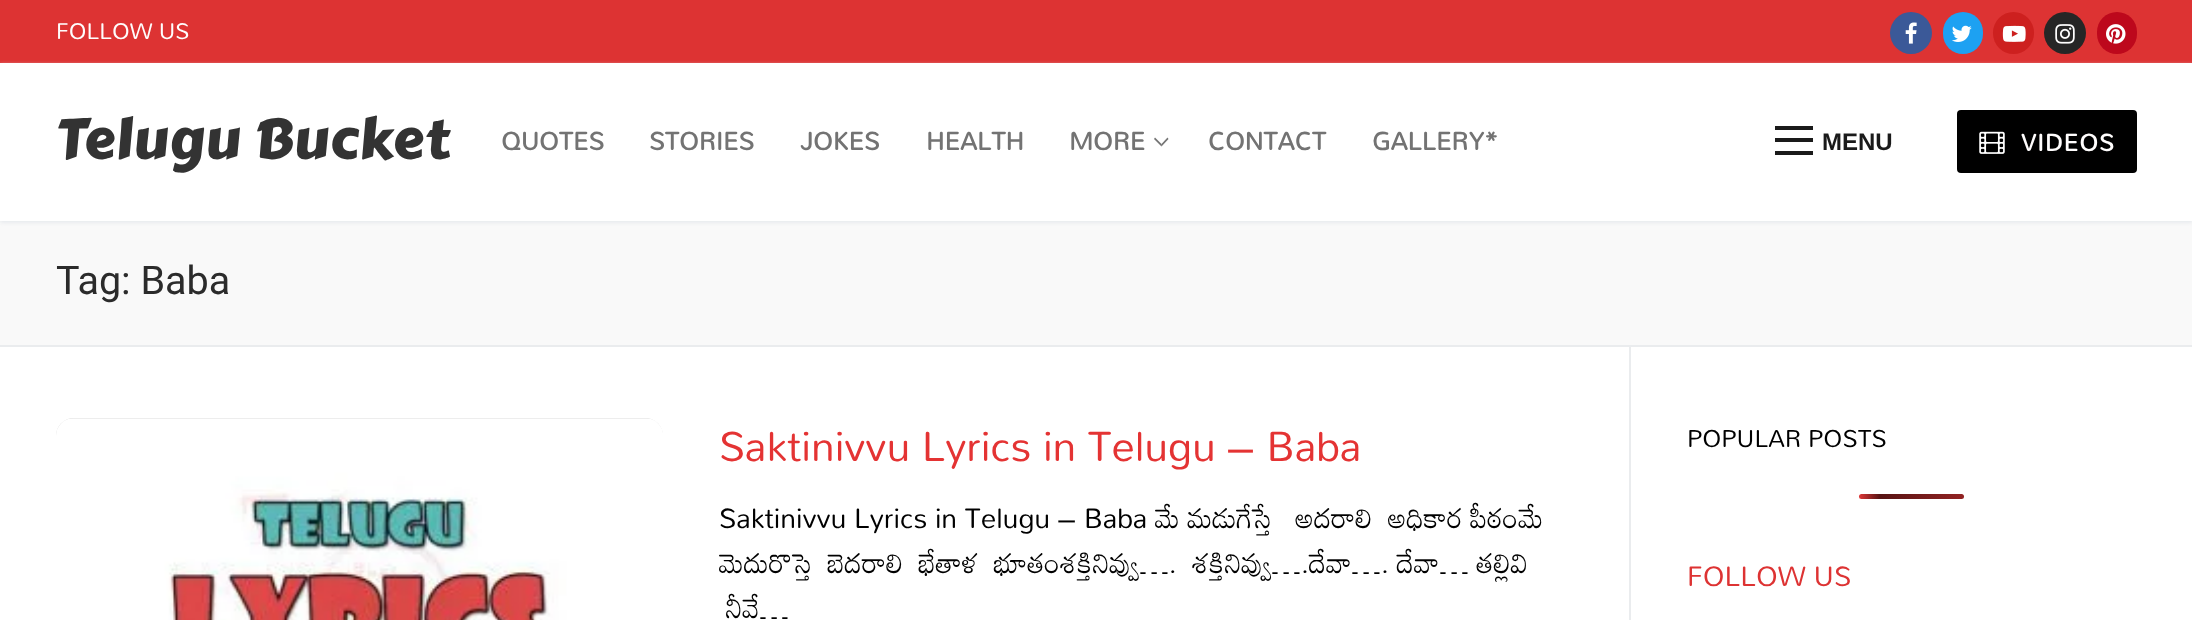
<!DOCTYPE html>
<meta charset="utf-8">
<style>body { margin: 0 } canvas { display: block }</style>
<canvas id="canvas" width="2192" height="620"></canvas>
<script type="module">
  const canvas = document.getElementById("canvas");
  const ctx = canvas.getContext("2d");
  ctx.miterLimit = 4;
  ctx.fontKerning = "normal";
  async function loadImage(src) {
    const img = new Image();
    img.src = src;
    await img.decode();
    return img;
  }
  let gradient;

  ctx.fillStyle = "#ffffff";
  ctx.fillRect(0, 0, 2192, 620);
  ctx.fillStyle = "#dd3333";
  ctx.fillRect(0, 0, 2192, 63);
  ctx.font = "22.75px Mandali";
  ctx.fillStyle = "#fffdfd";
  ctx.fillText("FOLLOW US", 56, 39);
  ctx.fillStyle = "#3b5998";
  ctx.beginPath();
  ctx.arc(1911, 33, 21, 0, Math.PI * 2);
  ctx.fill();
  ctx.drawImage(await loadImage("img1.png"), 1905, 22, 12, 22);
  ctx.fillStyle = "#1da1f2";
  ctx.beginPath();
  ctx.roundRect(1943, 12, 40, 42, 20);
  ctx.fill();
  ctx.drawImage(await loadImage("img2.png"), 1952, 25, 20, 17);
  ctx.fillStyle = "#cd201f";
  ctx.beginPath();
  ctx.roundRect(1993, 12, 41, 42, 20.5);
  ctx.fill();
  ctx.drawImage(await loadImage("img3.png"), 2002, 25, 24, 17);
  ctx.fillStyle = "#262626";
  ctx.beginPath();
  ctx.arc(2065, 33, 21, 0, Math.PI * 2);
  ctx.fill();
  ctx.drawImage(await loadImage("img4.png"), 2055, 24, 20, 20);
  ctx.fillStyle = "#bd081c";
  ctx.beginPath();
  ctx.roundRect(2097, 12, 40, 42, 20);
  ctx.fill();
  ctx.drawImage(await loadImage("img5.png"), 2106, 24, 20, 20);
  ctx.fillStyle = "#f9f9f9";
  ctx.fillRect(0, 221, 2192, 124);
  ctx.fillStyle = "#e1e5ea";
  ctx.filter = "blur(2px)";
  ctx.beginPath();
  ctx.rect(0, 65, 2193, 157);
  ctx.fill();
  ctx.filter = "none";
  ctx.fillStyle = "#ffffff";
  ctx.fillRect(0, 63, 2192, 158);
  ctx.letterSpacing = "0.75px";
  ctx.font = "56px Carter One";
  ctx.fillStyle = "#333333";
  ctx.fillText("Telugu Bucket", 56, 158);
  ctx.letterSpacing = "0px";
  ctx.font = "bold 25.25px Mandali";
  ctx.fillStyle = "#737373";
  ctx.fillText("QUOTES", 501, 150);
  ctx.fillText("STORIES", 649, 150);
  ctx.fillText("JOKES", 800, 150);
  ctx.fillText("HEALTH", 926, 150);
  ctx.fillText("MORE", 1069, 150);
  ctx.beginPath();
  ctx.moveTo(1161.5, 146.5);
  ctx.lineTo(1154, 139);
  ctx.lineTo(1155, 137.5);
  ctx.lineTo(1161.5, 144);
  ctx.closePath();
  ctx.fill();
  ctx.fillStyle = "rgba(0, 0, 0, 0.55)";
  ctx.beginPath();
  ctx.moveTo(1168.5, 139);
  ctx.lineTo(1161.5, 146.5);
  ctx.lineTo(1161.5, 144);
  ctx.lineTo(1167.5, 137.5);
  ctx.closePath();
  ctx.fill();
  ctx.fillStyle = "#737373";
  ctx.fillText("CONTACT", 1208, 150);
  ctx.fillText("GALLERY*", 1372, 150);
  ctx.fillStyle = "#1a1a1a";
  ctx.fillRect(1775, 138, 38, 4);
  ctx.fillRect(1775, 126, 38, 4);
  ctx.fillRect(1775, 151, 38, 4);
  ctx.font = "bold 24px Liberation Sans";
  ctx.fillText("MENU", 1822, 150);
  ctx.fillStyle = "#000000";
  ctx.beginPath();
  ctx.roundRect(1957, 110, 180, 63, 4);
  ctx.fill();
  ctx.drawImage(await loadImage("img6.png"), 1979, 131, 26, 23);
  ctx.letterSpacing = "1px";
  ctx.font = "bold 24px Mandali";
  ctx.fillStyle = "#fffdfd";
  ctx.fillText("VIDEOS", 2021, 151);
  ctx.fillStyle = "#eaecee";
  ctx.fillRect(0, 345, 2192, 2);
  ctx.letterSpacing = "0px";
  ctx.font = "39.5px Roboto";
  ctx.fillStyle = "#2b2b2b";
  ctx.fillText("Tag: Baba", 56, 294);
  ctx.fillStyle = "#eaecee";
  ctx.fillRect(1629, 347, 2, 273);
  ctx.fillStyle = "#d5d5d5";
  ctx.beginPath();
  ctx.roundRect(56, 418, 607, 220, 18);
  ctx.fill();
  ctx.drawImage(await loadImage("img7.png"), 56, 418, 607, 202);
  ctx.font = "42px Mandali";
  ctx.fillStyle = "#e43333";
  ctx.fillText("Saktinivvu Lyrics in Telugu – Baba", 719, 461);
  ctx.font = "28px Mandali";
  ctx.fillStyle = "#000000";
  ctx.fillText("Saktinivvu Lyrics in Telugu – Baba మే మడుగేస్తే   అదరాలి  అధికార పీఠంమే", 719, 528);
  ctx.fillText("మెదురొస్తె  బెదరాలి  భేతాళ  భూతంశక్తినివ్వు….  శక్తినివ్వు….దేవా…. దేవా… తల్లివి", 719, 573);
  ctx.fillText("నీవే…", 726, 618);
  ctx.font = "24.5px Mandali";
  ctx.fillText("POPULAR POSTS", 1687, 447);
  gradient = ctx.createLinearGradient(1859, 496, 2069, 496);
  gradient.addColorStop(0, "#dd3737");
  gradient.addColorStop(0.1, "#571313");
  gradient.addColorStop(1, "#dd3737");
  ctx.fillStyle = gradient;
  ctx.beginPath();
  ctx.roundRect(1859, 494, 105, 5, 2.5);
  ctx.fill();
  ctx.font = "28px Mandali";
  ctx.fillStyle = "#dd3333";
  ctx.fillText("FOLLOW US", 1687, 586);
</script>
